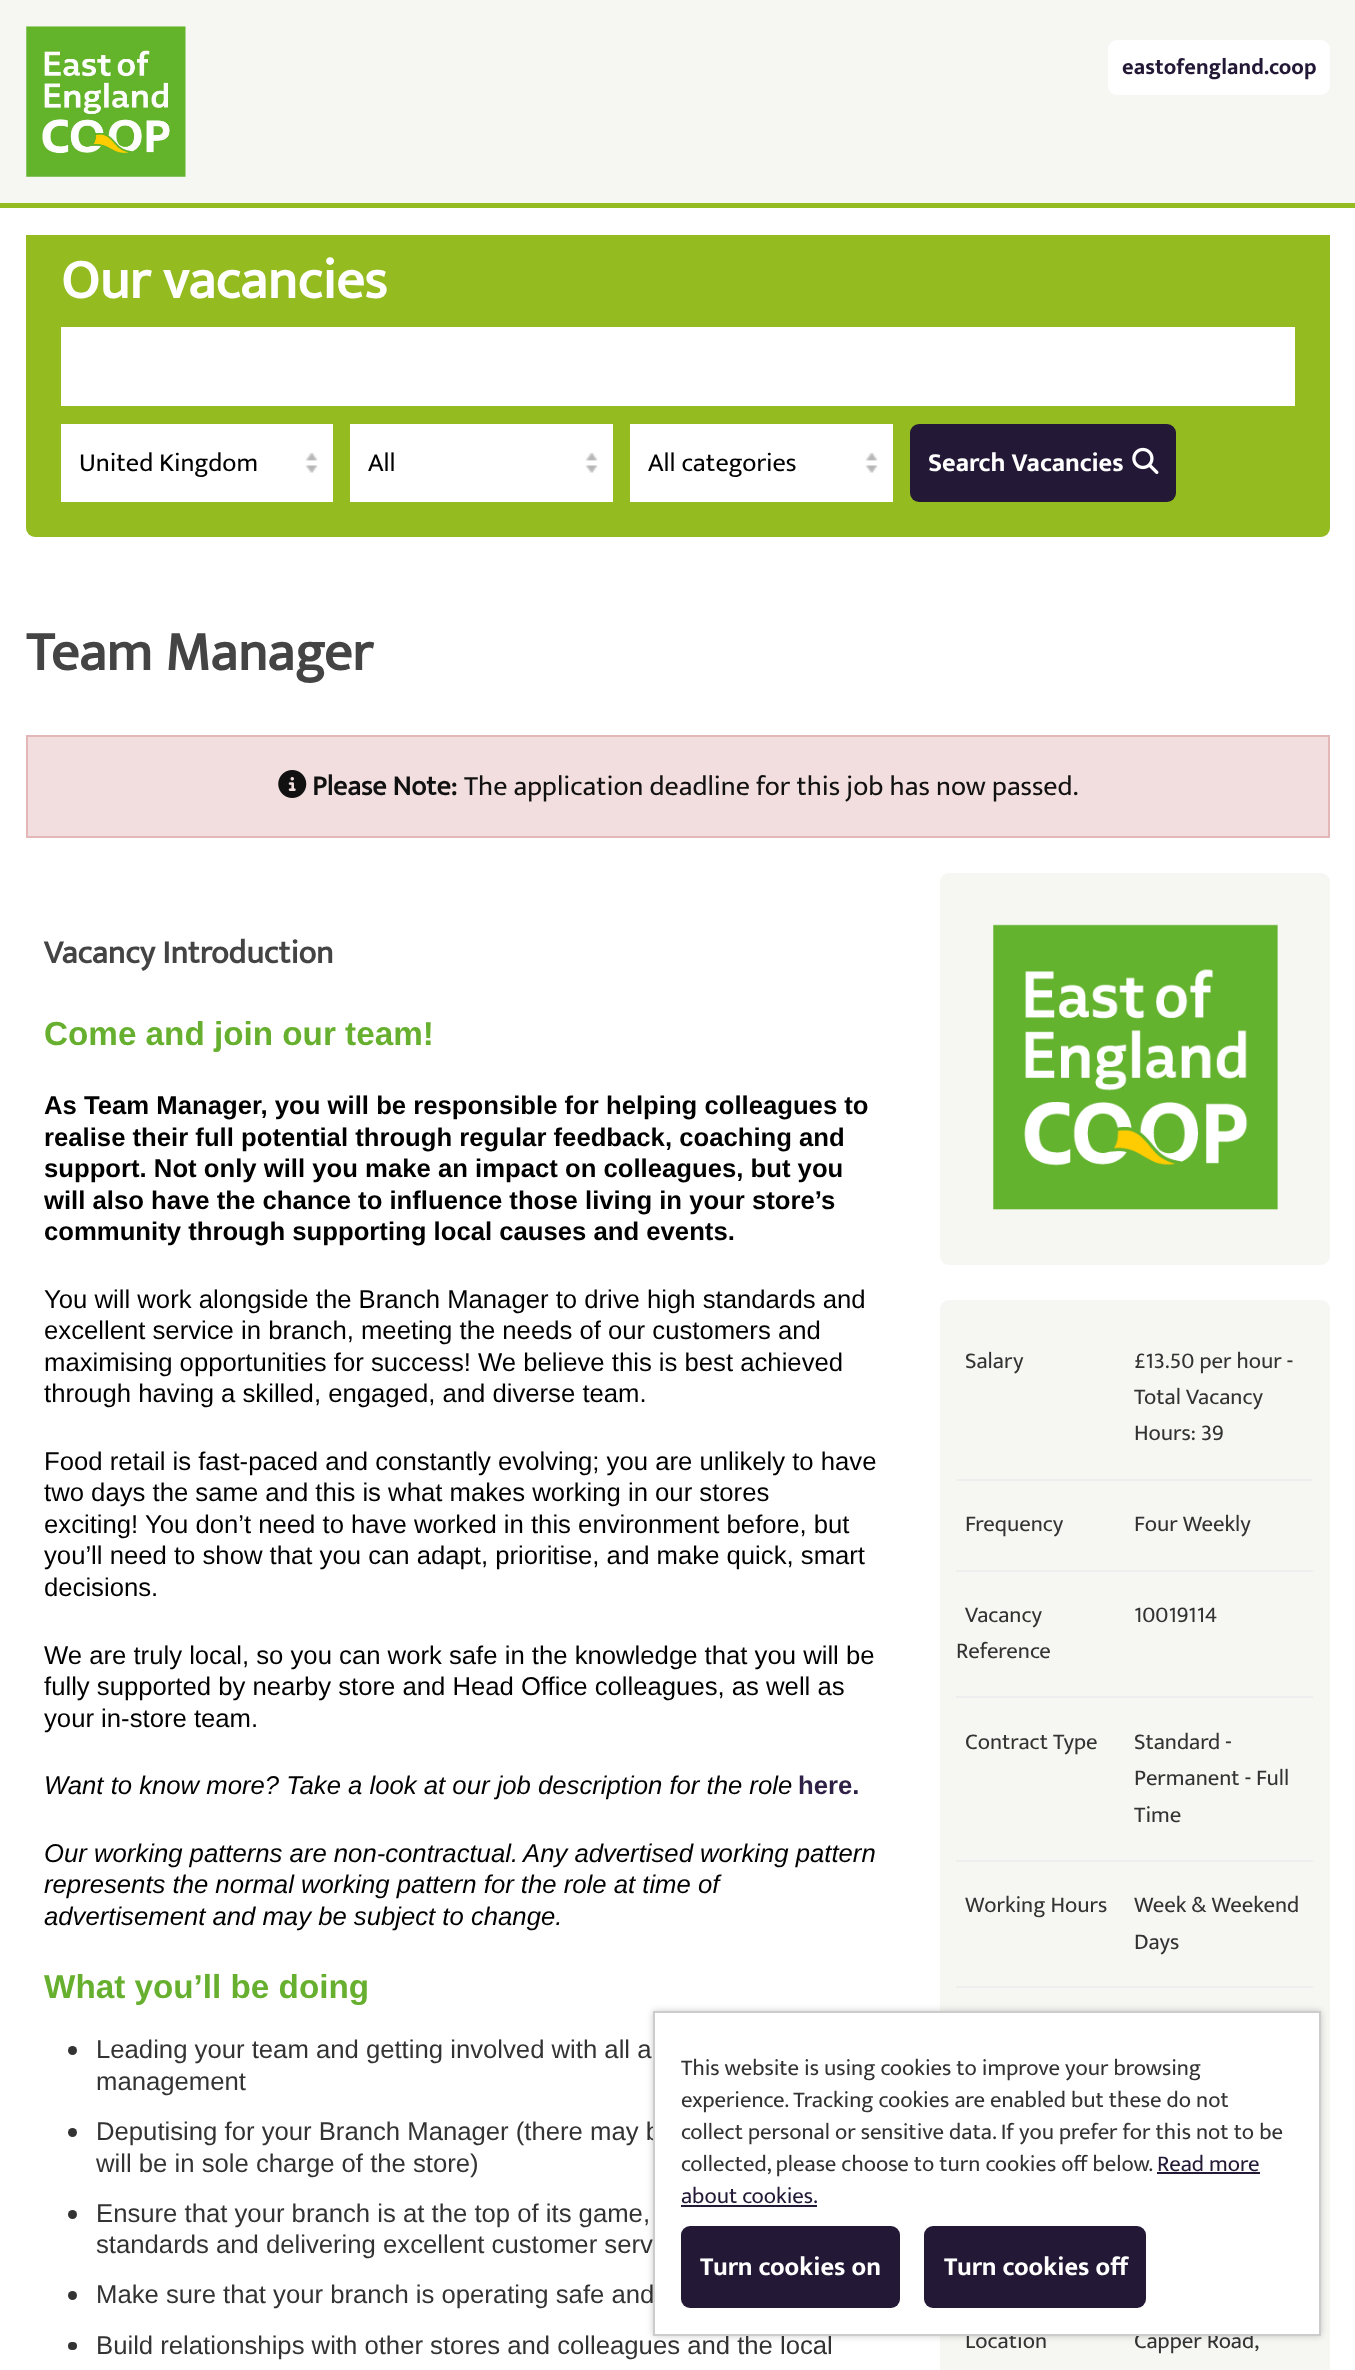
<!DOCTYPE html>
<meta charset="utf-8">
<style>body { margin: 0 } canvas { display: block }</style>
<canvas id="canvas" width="1355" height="2370"></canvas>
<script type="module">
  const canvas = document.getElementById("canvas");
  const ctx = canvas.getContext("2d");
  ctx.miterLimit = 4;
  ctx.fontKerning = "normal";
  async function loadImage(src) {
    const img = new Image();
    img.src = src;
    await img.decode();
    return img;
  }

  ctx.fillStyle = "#ffffff";
  ctx.fillRect(0, 0, 1355, 2370);
  ctx.fillStyle = "#f6f6f2";
  ctx.fillRect(0, 0, 1355, 203);
  ctx.fillStyle = "#94bb20";
  ctx.fillRect(0, 203, 1355, 5);
  ctx.drawImage(await loadImage("img1.png"), 26, 26, 160, 151);
  ctx.fillStyle = "#ffffff";
  ctx.beginPath();
  ctx.roundRect(1108, 40, 222, 55, 9);
  ctx.fill();
  ctx.font = "bold 22.5px 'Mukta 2'";
  ctx.fillStyle = "#231835";
  ctx.fillText("eastofengland.coop", 1122, 74);
  ctx.fillStyle = "#94bb20";
  ctx.beginPath();
  ctx.roundRect(26, 235, 1304, 302, [0, 0, 9, 9]);
  ctx.fill();
  ctx.font = "bold 56px Mukta";
  ctx.fillStyle = "#ffffff";
  ctx.fillText("Our vacancies", 61, 298);
  ctx.fillRect(61, 327, 1234, 79);
  ctx.fillRect(61, 424, 272, 78);
  ctx.drawImage(await loadImage("img2.png"), 306, 453, 12, 20);
  ctx.font = "26.25px Mukta";
  ctx.fillStyle = "#000000";
  ctx.fillText("United Kingdom", 79, 471);
  ctx.fillStyle = "#ffffff";
  ctx.fillRect(350, 424, 263, 78);
  ctx.drawImage(await loadImage("img2.png"), 586, 453, 12, 20);
  ctx.fillStyle = "#000000";
  ctx.fillText("All", 368, 471);
  ctx.fillStyle = "#ffffff";
  ctx.fillRect(630, 424, 263, 78);
  ctx.drawImage(await loadImage("img2.png"), 866, 453, 12, 20);
  ctx.fillStyle = "#000000";
  ctx.fillText("All categories", 648, 471);
  ctx.fillStyle = "#231835";
  ctx.beginPath();
  ctx.roundRect(910, 424, 266, 78, 9);
  ctx.fill();
  ctx.font = "bold 26.25px 'Mukta 2'";
  ctx.fillStyle = "#ffffff";
  ctx.fillText("Search Vacancies", 928, 471);
  ctx.drawImage(await loadImage("img3.png"), 1132, 447, 27, 27);
  ctx.font = "bold 56px Mukta";
  ctx.fillStyle = "#444444";
  ctx.fillText("Team Manager", 26, 670);
  ctx.fillStyle = "#f2dede";
  ctx.beginPath();
  ctx.rect(27, 736, 1302, 101);
  ctx.fill();
  ctx.strokeStyle = "#e3b7b7";
  ctx.lineWidth = 2;
  ctx.stroke();
  ctx.drawImage(await loadImage("img4.png"), 278, 770, 29, 28);
  ctx.font = "bold 28px Mukta";
  ctx.fillStyle = "#111111";
  ctx.fillText("Please Note:", 312, 795);
  ctx.font = "28px Mukta";
  ctx.fillText("The application deadline for this job has now passed.", 464, 795);
  ctx.font = "bold 32.75px Mukta";
  ctx.fillStyle = "#444444";
  ctx.fillText("Vacancy Introduction", 44, 963);
  ctx.font = "bold 33.25px Liberation Sans";
  ctx.fillStyle = "#67af2f";
  ctx.fillText("Come and join our team!", 44, 1045);
  ctx.font = "bold 25.7px Liberation Sans";
  ctx.fillStyle = "#000000";
  ctx.fillText("As Team Manager, you will be responsible for helping colleagues to", 44, 1114);
  ctx.fillText("realise their full potential through regular feedback, coaching and", 44, 1146);
  ctx.fillText("support. Not only will you make an impact on colleagues, but you", 44, 1177);
  ctx.fillText("will also have the chance to influence those living in your store’s", 44, 1209);
  ctx.fillText("community through supporting local causes and events.", 44, 1240);
  ctx.font = "25.7px Liberation Sans";
  ctx.fillText("You will work alongside the Branch Manager to drive high standards and", 44, 1308);
  ctx.fillText("excellent service in branch, meeting the needs of our customers and", 44, 1339);
  ctx.fillText("maximising opportunities for success! We believe this is best achieved", 44, 1371);
  ctx.fillText("through having a skilled, engaged, and diverse team.", 44, 1402);
  ctx.fillText("Food retail is fast-paced and constantly evolving; you are unlikely to have", 44, 1470);
  ctx.fillText("two days the same and this is what makes working in our stores", 44, 1501);
  ctx.fillText("exciting! You don’t need to have worked in this environment before, but", 44, 1533);
  ctx.fillText("you’ll need to show that you can adapt, prioritise, and make quick, smart", 44, 1564);
  ctx.fillText("decisions.", 44, 1596);
  ctx.fillText("We are truly local, so you can work safe in the knowledge that you will be", 44, 1664);
  ctx.fillText("fully supported by nearby store and Head Office colleagues, as well as", 44, 1695);
  ctx.fillText("your in-store team.", 44, 1727);
  ctx.font = "italic 25.7px Liberation Sans";
  ctx.fillText("Want to know more? Take a look at our job description for the role", 44, 1794);
  ctx.font = "bold 25.7px Liberation Sans";
  ctx.fillStyle = "#2e2046";
  ctx.fillText("here.", 798, 1794);
  ctx.font = "italic 25.7px Liberation Sans";
  ctx.fillStyle = "#000000";
  ctx.fillText("Our working patterns are non-contractual.", 44, 1862);
  ctx.fillText("Any advertised working pattern", 523, 1862);
  ctx.fillText("represents the normal working pattern for the role at time of", 44, 1893);
  ctx.fillText("advertisement and may be subject to change.", 44, 1925);
  ctx.font = "bold 33.25px Liberation Sans";
  ctx.fillStyle = "#67af2f";
  ctx.fillText("What you’ll be doing", 44, 1998);
  ctx.fillStyle = "#333333";
  ctx.beginPath();
  ctx.arc(72.5, 2050.5, 4.5, 0, Math.PI * 2);
  ctx.fill();
  ctx.font = "25.7px Liberation Sans";
  ctx.fillText("Leading your team and getting involved with all a", 96, 2058);
  ctx.fillText("management", 96, 2090);
  ctx.beginPath();
  ctx.arc(72.5, 2132.5, 4.5, 0, Math.PI * 2);
  ctx.fill();
  ctx.fillText("Deputising for your Branch Manager (there may b", 96, 2140);
  ctx.fillText("will be in sole charge of the store)", 96, 2172);
  ctx.beginPath();
  ctx.arc(72.5, 2214.5, 4.5, 0, Math.PI * 2);
  ctx.fill();
  ctx.fillText("Ensure that your branch is at the top of its game,", 96, 2222);
  ctx.fillText("standards and delivering excellent customer serv", 96, 2253);
  ctx.beginPath();
  ctx.arc(72.5, 2295.5, 4.5, 0, Math.PI * 2);
  ctx.fill();
  ctx.fillText("Make sure that your branch is operating safe and", 96, 2303);
  ctx.beginPath();
  ctx.roundRect(68, 2342, 9, 8, 4);
  ctx.fill();
  ctx.fillText("Build relationships with other stores and colleagues and the local", 96, 2354);
  ctx.fillStyle = "#f6f6f2";
  ctx.beginPath();
  ctx.roundRect(940, 873, 390, 392, 9);
  ctx.fill();
  ctx.drawImage(await loadImage("img5.png"), 993, 924, 285, 286);
  ctx.beginPath();
  ctx.roundRect(940, 1300, 390, 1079, 9);
  ctx.fill();
  ctx.font = "22.75px Mukta";
  ctx.fillStyle = "#333333";
  ctx.fillText("Salary", 965, 1368);
  ctx.fillStyle = "#eeeeee";
  ctx.fillRect(956, 1479, 357, 2);
  ctx.fillStyle = "#333333";
  ctx.fillText("£13.50 per hour -", 1134, 1368);
  ctx.fillText("Total Vacancy", 1134, 1404);
  ctx.fillText("Hours: 39", 1134, 1440);
  ctx.fillText("Frequency", 965, 1531);
  ctx.fillStyle = "#eeeeee";
  ctx.fillRect(956, 1570, 357, 2);
  ctx.fillStyle = "#333333";
  ctx.fillText("Four Weekly", 1134, 1531);
  ctx.fillText("Vacancy", 965, 1622);
  ctx.fillText("Reference", 956, 1658);
  ctx.fillStyle = "#eeeeee";
  ctx.fillRect(956, 1696, 357, 2);
  ctx.fillStyle = "#333333";
  ctx.fillText("10019114", 1134, 1622);
  ctx.fillText("Contract Type", 965, 1749);
  ctx.fillStyle = "#eeeeee";
  ctx.fillRect(956, 1860, 357, 2);
  ctx.fillStyle = "#333333";
  ctx.fillText("Standard -", 1134, 1749);
  ctx.fillText("Permanent - Full", 1134, 1785);
  ctx.fillText("Time", 1134, 1822);
  ctx.fillText("Working Hours", 965, 1912);
  ctx.fillStyle = "#eeeeee";
  ctx.fillRect(956, 1986, 357, 2);
  ctx.fillStyle = "#333333";
  ctx.fillText("Week & Weekend", 1134, 1912);
  ctx.fillText("Days", 1134, 1949);
  ctx.fillText("Location", 965, 2348);
  ctx.fillText("Capper Road,", 1134, 2348);
  ctx.fillStyle = "rgba(0, 0, 0, 0.2)";
  ctx.filter = "blur(3.5px)";
  ctx.beginPath();
  ctx.rect(653, 2011, 668, 325);
  ctx.fill();
  ctx.filter = "none";
  ctx.fillStyle = "#ffffff";
  ctx.beginPath();
  ctx.rect(654, 2012, 666, 323);
  ctx.fill();
  ctx.strokeStyle = "#cccccc";
  ctx.stroke();
  ctx.fillStyle = "#333333";
  ctx.fillText("This website is using cookies to improve your browsing", 681, 2075);
  ctx.fillText("experience. Tracking cookies are enabled but these do not", 681, 2107);
  ctx.fillText("collect personal or sensitive data. If you prefer for this not to be", 681, 2139);
  ctx.fillText("collected, please choose to turn cookies off below.", 681, 2171);
  ctx.fillStyle = "#231835";
  ctx.fillText("Read more", 1157, 2171);
  ctx.fillRect(1157, 2172, 103, 2);
  ctx.fillText("about cookies.", 681, 2203);
  ctx.fillRect(681, 2205, 136, 2);
  ctx.beginPath();
  ctx.roundRect(681, 2226, 219, 82, 9);
  ctx.fill();
  ctx.font = "bold 26.25px 'Mukta 2'";
  ctx.fillStyle = "#ffffff";
  ctx.fillText("Turn cookies on", 700, 2275);
  ctx.fillStyle = "#231835";
  ctx.beginPath();
  ctx.roundRect(924, 2226, 222, 82, 9);
  ctx.fill();
  ctx.fillStyle = "#ffffff";
  ctx.fillText("Turn cookies off", 944, 2275);
</script>
